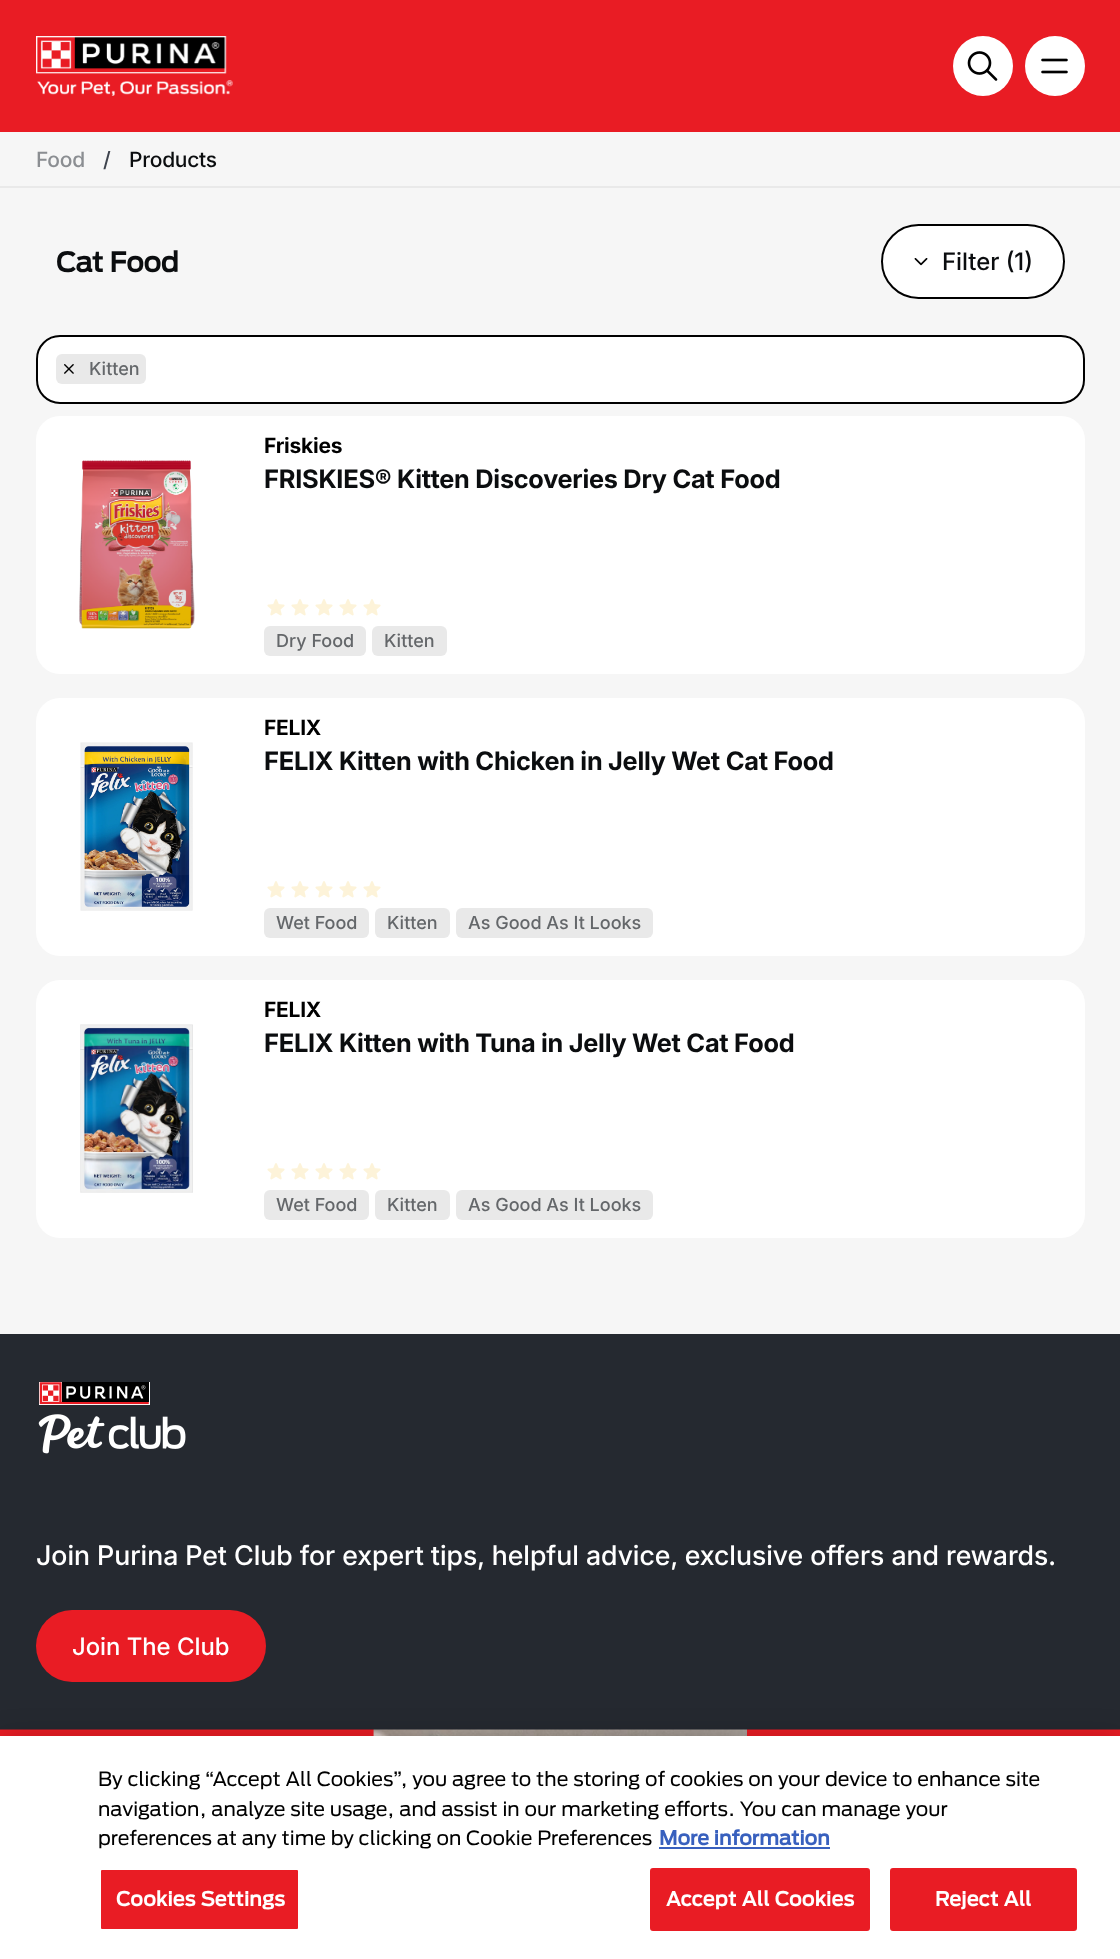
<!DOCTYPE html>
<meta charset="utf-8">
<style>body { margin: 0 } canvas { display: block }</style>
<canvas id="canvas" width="1120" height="1959"></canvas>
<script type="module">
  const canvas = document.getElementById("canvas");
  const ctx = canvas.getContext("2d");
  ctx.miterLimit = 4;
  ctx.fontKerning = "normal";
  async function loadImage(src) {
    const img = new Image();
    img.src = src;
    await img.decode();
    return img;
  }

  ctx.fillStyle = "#f6f6f6";
  ctx.fillRect(0, 0, 1120, 1959);
  ctx.fillStyle = "#e91c24";
  ctx.fillRect(0, 0, 1120, 132);
  ctx.drawImage(await loadImage("img1.png"), 36, 36, 197, 60);
  ctx.fillStyle = "#ffffff";
  ctx.beginPath();
  ctx.arc(983, 66, 30, 0, Math.PI * 2);
  ctx.fill();
  ctx.drawImage(await loadImage("img2.png"), 967, 51, 31, 30);
  ctx.beginPath();
  ctx.arc(1055, 66, 30, 0, Math.PI * 2);
  ctx.fill();
  ctx.drawImage(await loadImage("img3.png"), 1041, 58, 27, 16);
  ctx.fillStyle = "#e9e9e9";
  ctx.fillRect(0, 186, 1120, 2);
  ctx.letterSpacing = "-0.25px";
  ctx.font = "500 21px 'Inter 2'";
  ctx.fillStyle = "#8b8e92";
  ctx.fillText("Food", 36, 167);
  ctx.fillStyle = "#3e434d";
  ctx.fillText("/", 103, 167);
  ctx.fillStyle = "#0b0d0f";
  ctx.fillText("Products", 129, 167);
  ctx.font = "bold 27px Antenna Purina";
  ctx.fillText("Cat Food", 56, 272);
  ctx.fillStyle = "#ffffff";
  ctx.beginPath();
  ctx.roundRect(882, 225, 182, 73, 36.5);
  ctx.fill();
  ctx.strokeStyle = "#000000";
  ctx.lineWidth = 2;
  ctx.stroke();
  ctx.drawImage(await loadImage("img4.png"), 914, 258, 14, 8);
  ctx.letterSpacing = "0px";
  ctx.font = "500 24px 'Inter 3'";
  ctx.fillStyle = "#0b0d0f";
  ctx.fillText("Filter (1)", 942, 270);
  ctx.fillStyle = "#ffffff";
  ctx.beginPath();
  ctx.roundRect(37, 336, 1047, 67, 23);
  ctx.fill();
  ctx.stroke();
  ctx.fillStyle = "#e9e9e9";
  ctx.beginPath();
  ctx.roundRect(56, 354, 90, 30, 6);
  ctx.fill();
  ctx.drawImage(await loadImage("img5.png"), 64, 364, 10, 10);
  ctx.font = "500 18px 'Inter 2'";
  ctx.fillStyle = "#64676a";
  ctx.fillText("Kitten", 89, 375);
  ctx.fillStyle = "#ffffff";
  ctx.beginPath();
  ctx.roundRect(36, 416, 1049, 258, 24);
  ctx.fill();
  ctx.drawImage(await loadImage("img6.png"), 79, 460, 116, 169);
  ctx.letterSpacing = "-0.25px";
  ctx.font = "bold 21px Inter";
  ctx.fillStyle = "#000000";
  ctx.fillText("Friskies", 264, 453);
  ctx.font = "bold 25.5px 'Inter 2'";
  ctx.fillStyle = "#0b0d0f";
  ctx.fillText("FRISKIES® Kitten Discoveries Dry Cat Food", 264, 488);
  ctx.drawImage(await loadImage("img7.png"), 267, 599, 18, 17);
  ctx.drawImage(await loadImage("img7.png"), 291, 599, 18, 17);
  ctx.drawImage(await loadImage("img7.png"), 315, 599, 18, 17);
  ctx.drawImage(await loadImage("img7.png"), 339, 599, 18, 17);
  ctx.drawImage(await loadImage("img7.png"), 363, 599, 18, 17);
  ctx.fillStyle = "#e9e9e9";
  ctx.beginPath();
  ctx.roundRect(264, 626, 102, 30, 6);
  ctx.fill();
  ctx.letterSpacing = "0px";
  ctx.font = "500 18px 'Inter 2'";
  ctx.fillStyle = "#64676a";
  ctx.fillText("Dry Food", 276, 647);
  ctx.fillStyle = "#e9e9e9";
  ctx.beginPath();
  ctx.roundRect(372, 626, 75, 30, 6);
  ctx.fill();
  ctx.fillStyle = "#64676a";
  ctx.fillText("Kitten", 384, 647);
  ctx.fillStyle = "#ffffff";
  ctx.beginPath();
  ctx.roundRect(36, 698, 1049, 258, 24);
  ctx.fill();
  ctx.drawImage(await loadImage("img8.png"), 80, 742, 113, 169);
  ctx.letterSpacing = "-0.25px";
  ctx.font = "bold 21px Inter";
  ctx.fillStyle = "#000000";
  ctx.fillText("FELIX", 264, 735);
  ctx.font = "bold 25.5px 'Inter 2'";
  ctx.fillStyle = "#0b0d0f";
  ctx.fillText("FELIX Kitten with Chicken in Jelly Wet Cat Food", 264, 770);
  ctx.drawImage(await loadImage("img7.png"), 267, 881, 18, 17);
  ctx.drawImage(await loadImage("img7.png"), 291, 881, 18, 17);
  ctx.drawImage(await loadImage("img7.png"), 315, 881, 18, 17);
  ctx.drawImage(await loadImage("img7.png"), 339, 881, 18, 17);
  ctx.drawImage(await loadImage("img7.png"), 363, 881, 18, 17);
  ctx.fillStyle = "#e9e9e9";
  ctx.beginPath();
  ctx.roundRect(264, 908, 105, 30, 6);
  ctx.fill();
  ctx.letterSpacing = "0px";
  ctx.font = "500 18px 'Inter 2'";
  ctx.fillStyle = "#64676a";
  ctx.fillText("Wet Food", 276, 929);
  ctx.fillStyle = "#e9e9e9";
  ctx.beginPath();
  ctx.roundRect(375, 908, 75, 30, 6);
  ctx.fill();
  ctx.fillStyle = "#64676a";
  ctx.fillText("Kitten", 387, 929);
  ctx.fillStyle = "#e9e9e9";
  ctx.beginPath();
  ctx.roundRect(456, 908, 197, 30, 6);
  ctx.fill();
  ctx.fillStyle = "#64676a";
  ctx.fillText("As Good As It Looks", 468, 929);
  ctx.fillStyle = "#ffffff";
  ctx.beginPath();
  ctx.roundRect(36, 980, 1049, 258, 24);
  ctx.fill();
  ctx.drawImage(await loadImage("img9.png"), 80, 1024, 113, 169);
  ctx.letterSpacing = "-0.25px";
  ctx.font = "bold 21px Inter";
  ctx.fillStyle = "#000000";
  ctx.fillText("FELIX", 264, 1017);
  ctx.font = "bold 25.5px 'Inter 2'";
  ctx.fillStyle = "#0b0d0f";
  ctx.fillText("FELIX Kitten with Tuna in Jelly Wet Cat Food", 264, 1052);
  ctx.drawImage(await loadImage("img7.png"), 267, 1163, 18, 17);
  ctx.drawImage(await loadImage("img7.png"), 291, 1163, 18, 17);
  ctx.drawImage(await loadImage("img7.png"), 315, 1163, 18, 17);
  ctx.drawImage(await loadImage("img7.png"), 339, 1163, 18, 17);
  ctx.drawImage(await loadImage("img7.png"), 363, 1163, 18, 17);
  ctx.fillStyle = "#e9e9e9";
  ctx.beginPath();
  ctx.roundRect(264, 1190, 105, 30, 6);
  ctx.fill();
  ctx.letterSpacing = "0px";
  ctx.font = "500 18px 'Inter 2'";
  ctx.fillStyle = "#64676a";
  ctx.fillText("Wet Food", 276, 1211);
  ctx.fillStyle = "#e9e9e9";
  ctx.beginPath();
  ctx.roundRect(375, 1190, 75, 30, 6);
  ctx.fill();
  ctx.fillStyle = "#64676a";
  ctx.fillText("Kitten", 387, 1211);
  ctx.fillStyle = "#e9e9e9";
  ctx.beginPath();
  ctx.roundRect(456, 1190, 197, 30, 6);
  ctx.fill();
  ctx.fillStyle = "#64676a";
  ctx.fillText("As Good As It Looks", 468, 1211);
  ctx.fillStyle = "#252930";
  ctx.fillRect(0, 1334, 1120, 396);
  ctx.drawImage(await loadImage("img10.png"), 38, 1382, 148, 72);
  ctx.font = "500 27px Inter";
  ctx.fillStyle = "#ffffff";
  ctx.fillText("Join Purina Pet Club for expert tips, helpful advice, exclusive offers and rewards.", 36, 1565);
  ctx.fillStyle = "#e91c24";
  ctx.beginPath();
  ctx.roundRect(36, 1610, 230, 72, 36);
  ctx.fill();
  ctx.font = "500 24px 'Inter 3'";
  ctx.fillStyle = "#ffffff";
  ctx.fillText("Join The Club", 72, 1655);
  ctx.drawImage(await loadImage("img11.png"), 0, 1729, 1120, 7);
  ctx.fillStyle = "rgba(0, 0, 0, 0.2)";
  ctx.filter = "blur(13.5px)";
  ctx.beginPath();
  ctx.rect(0, 1736, 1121, 223);
  ctx.fill();
  ctx.filter = "none";
  ctx.fillStyle = "#ffffff";
  ctx.fillRect(0, 1736, 1120, 223);
  ctx.font = "19.5px Antenna Purina";
  ctx.fillStyle = "#000000";
  ctx.fillText("By clicking “Accept All Cookies”, you agree to the storing of cookies on your device to enhance site", 98, 1786);
  ctx.fillText("navigation, analyze site usage, and assist in our marketing efforts. You can manage your", 98, 1816);
  ctx.fillText("preferences at any time by clicking on Cookie Preferences", 98, 1845);
  ctx.font = "bold 19.5px Antenna Purina";
  ctx.fillStyle = "#3860be";
  ctx.fillText("More information", 659, 1845);
  ctx.fillRect(659, 1847, 171, 2);
  ctx.fillStyle = "#e91c24";
  ctx.beginPath();
  ctx.roundRect(100, 1869, 199, 61, 2);
  ctx.fill();
  ctx.strokeStyle = "#ffffff";
  ctx.stroke();
  ctx.letterSpacing = "0.25px";
  ctx.fillStyle = "#ffffff";
  ctx.fillText("Cookies Settings", 116, 1906);
  ctx.fillStyle = "#e91c24";
  ctx.beginPath();
  ctx.roundRect(651, 1869, 218, 61, 2);
  ctx.fill();
  ctx.strokeStyle = "#e91c24";
  ctx.stroke();
  ctx.fillStyle = "#ffffff";
  ctx.fillText("Accept All Cookies", 666, 1906);
  ctx.fillStyle = "#e91c24";
  ctx.beginPath();
  ctx.roundRect(891, 1869, 185, 61, 2);
  ctx.fill();
  ctx.stroke();
  ctx.fillStyle = "#ffffff";
  ctx.fillText("Reject All", 935, 1906);
</script>
